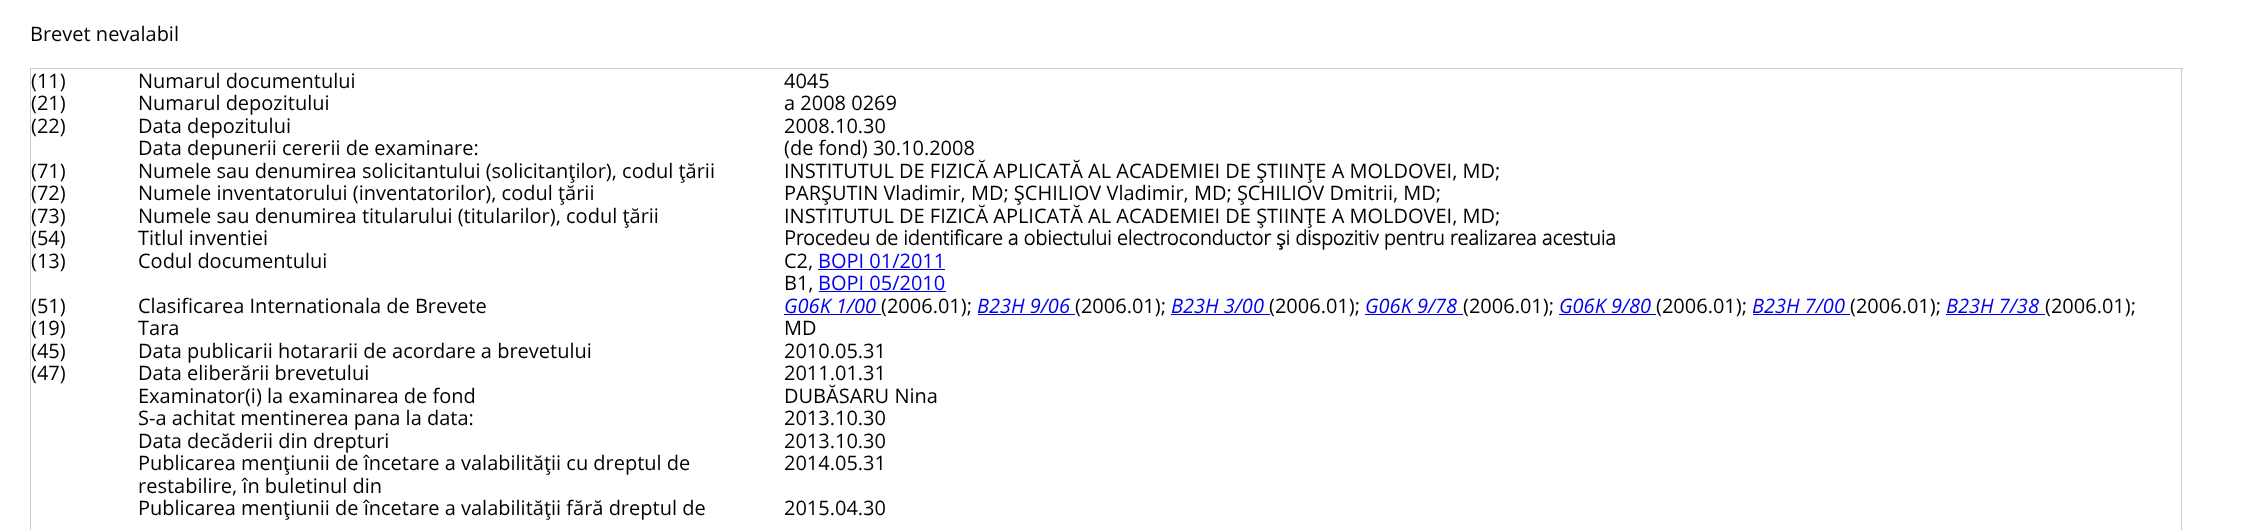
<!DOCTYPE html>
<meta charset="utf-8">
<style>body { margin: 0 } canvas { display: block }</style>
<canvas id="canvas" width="2266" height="530"></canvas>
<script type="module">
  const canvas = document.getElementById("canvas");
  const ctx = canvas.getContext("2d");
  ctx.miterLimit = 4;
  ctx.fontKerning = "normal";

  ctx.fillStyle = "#ffffff";
  ctx.fillRect(0, 0, 2266, 530);
  ctx.font = "20px Open Sans";
  ctx.fillStyle = "#000000";
  ctx.fillText("Brevet nevalabil", 30, 41);
  ctx.fillStyle = "#cccccc";
  ctx.fillRect(30, 68, 2153, 1);
  ctx.fillRect(2181, 68, 1, 462);
  ctx.fillRect(30, 68, 1, 462);
  ctx.fillStyle = "#000000";
  ctx.fillText("(11)", 31, 88);
  ctx.fillText("Numarul documentului", 138, 88);
  ctx.fillText("4045", 784, 88);
  ctx.fillText("(21)", 31, 110);
  ctx.fillText("Numarul depozitului", 138, 110);
  ctx.fillText("a 2008 0269", 784, 110);
  ctx.fillText("(22)", 31, 133);
  ctx.fillText("Data depozitului", 138, 133);
  ctx.fillText("2008.10.30", 784, 133);
  ctx.fillText("Data depunerii cererii de examinare:", 138, 155);
  ctx.fillText("(de fond) 30.10.2008", 784, 155);
  ctx.fillText("(71)", 31, 178);
  ctx.fillText("Numele sau denumirea solicitantului (solicitanţilor), codul ţării", 138, 178);
  ctx.fillText("INSTITUTUL DE FIZICĂ APLICATĂ AL ACADEMIEI DE ŞTIINŢE A MOLDOVEI, MD;", 784, 178);
  ctx.fillText("(72)", 31, 200);
  ctx.fillText("Numele inventatorului (inventatorilor), codul ţării", 138, 200);
  ctx.fillText("PARŞUTIN Vladimir, MD; ŞCHILIOV Vladimir, MD; ŞCHILIOV Dmitrii, MD;", 784, 200);
  ctx.fillText("(73)", 31, 223);
  ctx.fillText("Numele sau denumirea titularului (titularilor), codul ţării", 138, 223);
  ctx.fillText("INSTITUTUL DE FIZICĂ APLICATĂ AL ACADEMIEI DE ŞTIINŢE A MOLDOVEI, MD;", 784, 223);
  ctx.fillText("(54)", 31, 245);
  ctx.fillText("Titlul inventiei", 138, 245);
  ctx.font = "bold 20px Open Sans";
  ctx.fillText("Procedeu de identificare a obiectului electroconductor şi dispozitiv pentru realizarea acestuia", 784, 245);
  ctx.font = "20px Open Sans";
  ctx.fillText("(13)", 31, 268);
  ctx.fillText("Codul documentului", 138, 268);
  ctx.fillText("C2,", 784, 268);
  ctx.fillStyle = "#0000ee";
  ctx.fillText("BOPI 01/2011", 818, 268);
  ctx.fillRect(818, 269, 127, 1);
  ctx.fillStyle = "#000000";
  ctx.fillText("B1,", 784, 290);
  ctx.fillStyle = "#0000ee";
  ctx.fillText("BOPI 05/2010", 818, 290);
  ctx.fillRect(819, 291, 127, 1);
  ctx.fillStyle = "#000000";
  ctx.fillText("(51)", 31, 313);
  ctx.fillText("Clasificarea Internationala de Brevete", 138, 313);
  ctx.font = "italic 20px Open Sans";
  ctx.fillStyle = "#0000ee";
  ctx.fillText("G06K 1/00", 784, 313);
  ctx.fillRect(784, 314, 97, 1);
  ctx.font = "20px Open Sans";
  ctx.fillStyle = "#000000";
  ctx.fillText("(2006.01);", 881, 313);
  ctx.font = "italic 20px Open Sans";
  ctx.fillStyle = "#0000ee";
  ctx.fillText("B23H 9/06", 977, 313);
  ctx.fillRect(978, 314, 97, 1);
  ctx.font = "20px Open Sans";
  ctx.fillStyle = "#000000";
  ctx.fillText("(2006.01);", 1075, 313);
  ctx.font = "italic 20px Open Sans";
  ctx.fillStyle = "#0000ee";
  ctx.fillText("B23H 3/00", 1171, 313);
  ctx.fillRect(1171, 314, 99, 1);
  ctx.font = "20px Open Sans";
  ctx.fillStyle = "#000000";
  ctx.fillText("(2006.01);", 1269, 313);
  ctx.font = "italic 20px Open Sans";
  ctx.fillStyle = "#0000ee";
  ctx.fillText("G06K 9/78", 1365, 313);
  ctx.fillRect(1365, 314, 98, 1);
  ctx.font = "20px Open Sans";
  ctx.fillStyle = "#000000";
  ctx.fillText("(2006.01);", 1463, 313);
  ctx.font = "italic 20px Open Sans";
  ctx.fillStyle = "#0000ee";
  ctx.fillText("G06K 9/80", 1559, 313);
  ctx.fillRect(1559, 314, 97, 1);
  ctx.font = "20px Open Sans";
  ctx.fillStyle = "#000000";
  ctx.fillText("(2006.01);", 1656, 313);
  ctx.font = "italic 20px Open Sans";
  ctx.fillStyle = "#0000ee";
  ctx.fillText("B23H 7/00", 1752, 313);
  ctx.fillRect(1753, 314, 97, 1);
  ctx.font = "20px Open Sans";
  ctx.fillStyle = "#000000";
  ctx.fillText("(2006.01);", 1850, 313);
  ctx.font = "italic 20px Open Sans";
  ctx.fillStyle = "#0000ee";
  ctx.fillText("B23H 7/38", 1946, 313);
  ctx.fillRect(1946, 314, 99, 1);
  ctx.font = "20px Open Sans";
  ctx.fillStyle = "#000000";
  ctx.fillText("(2006.01);", 2045, 313);
  ctx.fillText("(19)", 31, 335);
  ctx.fillText("Tara", 138, 335);
  ctx.fillText("MD", 784, 335);
  ctx.fillText("(45)", 31, 358);
  ctx.fillText("Data publicarii hotararii de acordare a brevetului", 138, 358);
  ctx.fillText("2010.05.31", 784, 358);
  ctx.fillText("(47)", 31, 380);
  ctx.fillText("Data eliberării brevetului", 138, 380);
  ctx.fillText("2011.01.31", 784, 380);
  ctx.fillText("Examinator(i) la examinarea de fond", 138, 403);
  ctx.fillText("DUBĂSARU Nina", 784, 403);
  ctx.fillText("S-a achitat mentinerea pana la data:", 138, 425);
  ctx.fillText("2013.10.30", 784, 425);
  ctx.fillText("Data decăderii din drepturi", 138, 448);
  ctx.fillText("2013.10.30", 784, 448);
  ctx.fillText("Publicarea menţiunii de încetare a valabilităţii cu dreptul de", 138, 470);
  ctx.fillText("restabilire, în buletinul din", 138, 493);
  ctx.fillText("2014.05.31", 784, 470);
  ctx.fillText("Publicarea menţiunii de încetare a valabilităţii fără dreptul de", 138, 515);
  ctx.fillText("2015.04.30", 784, 515);
</script>
